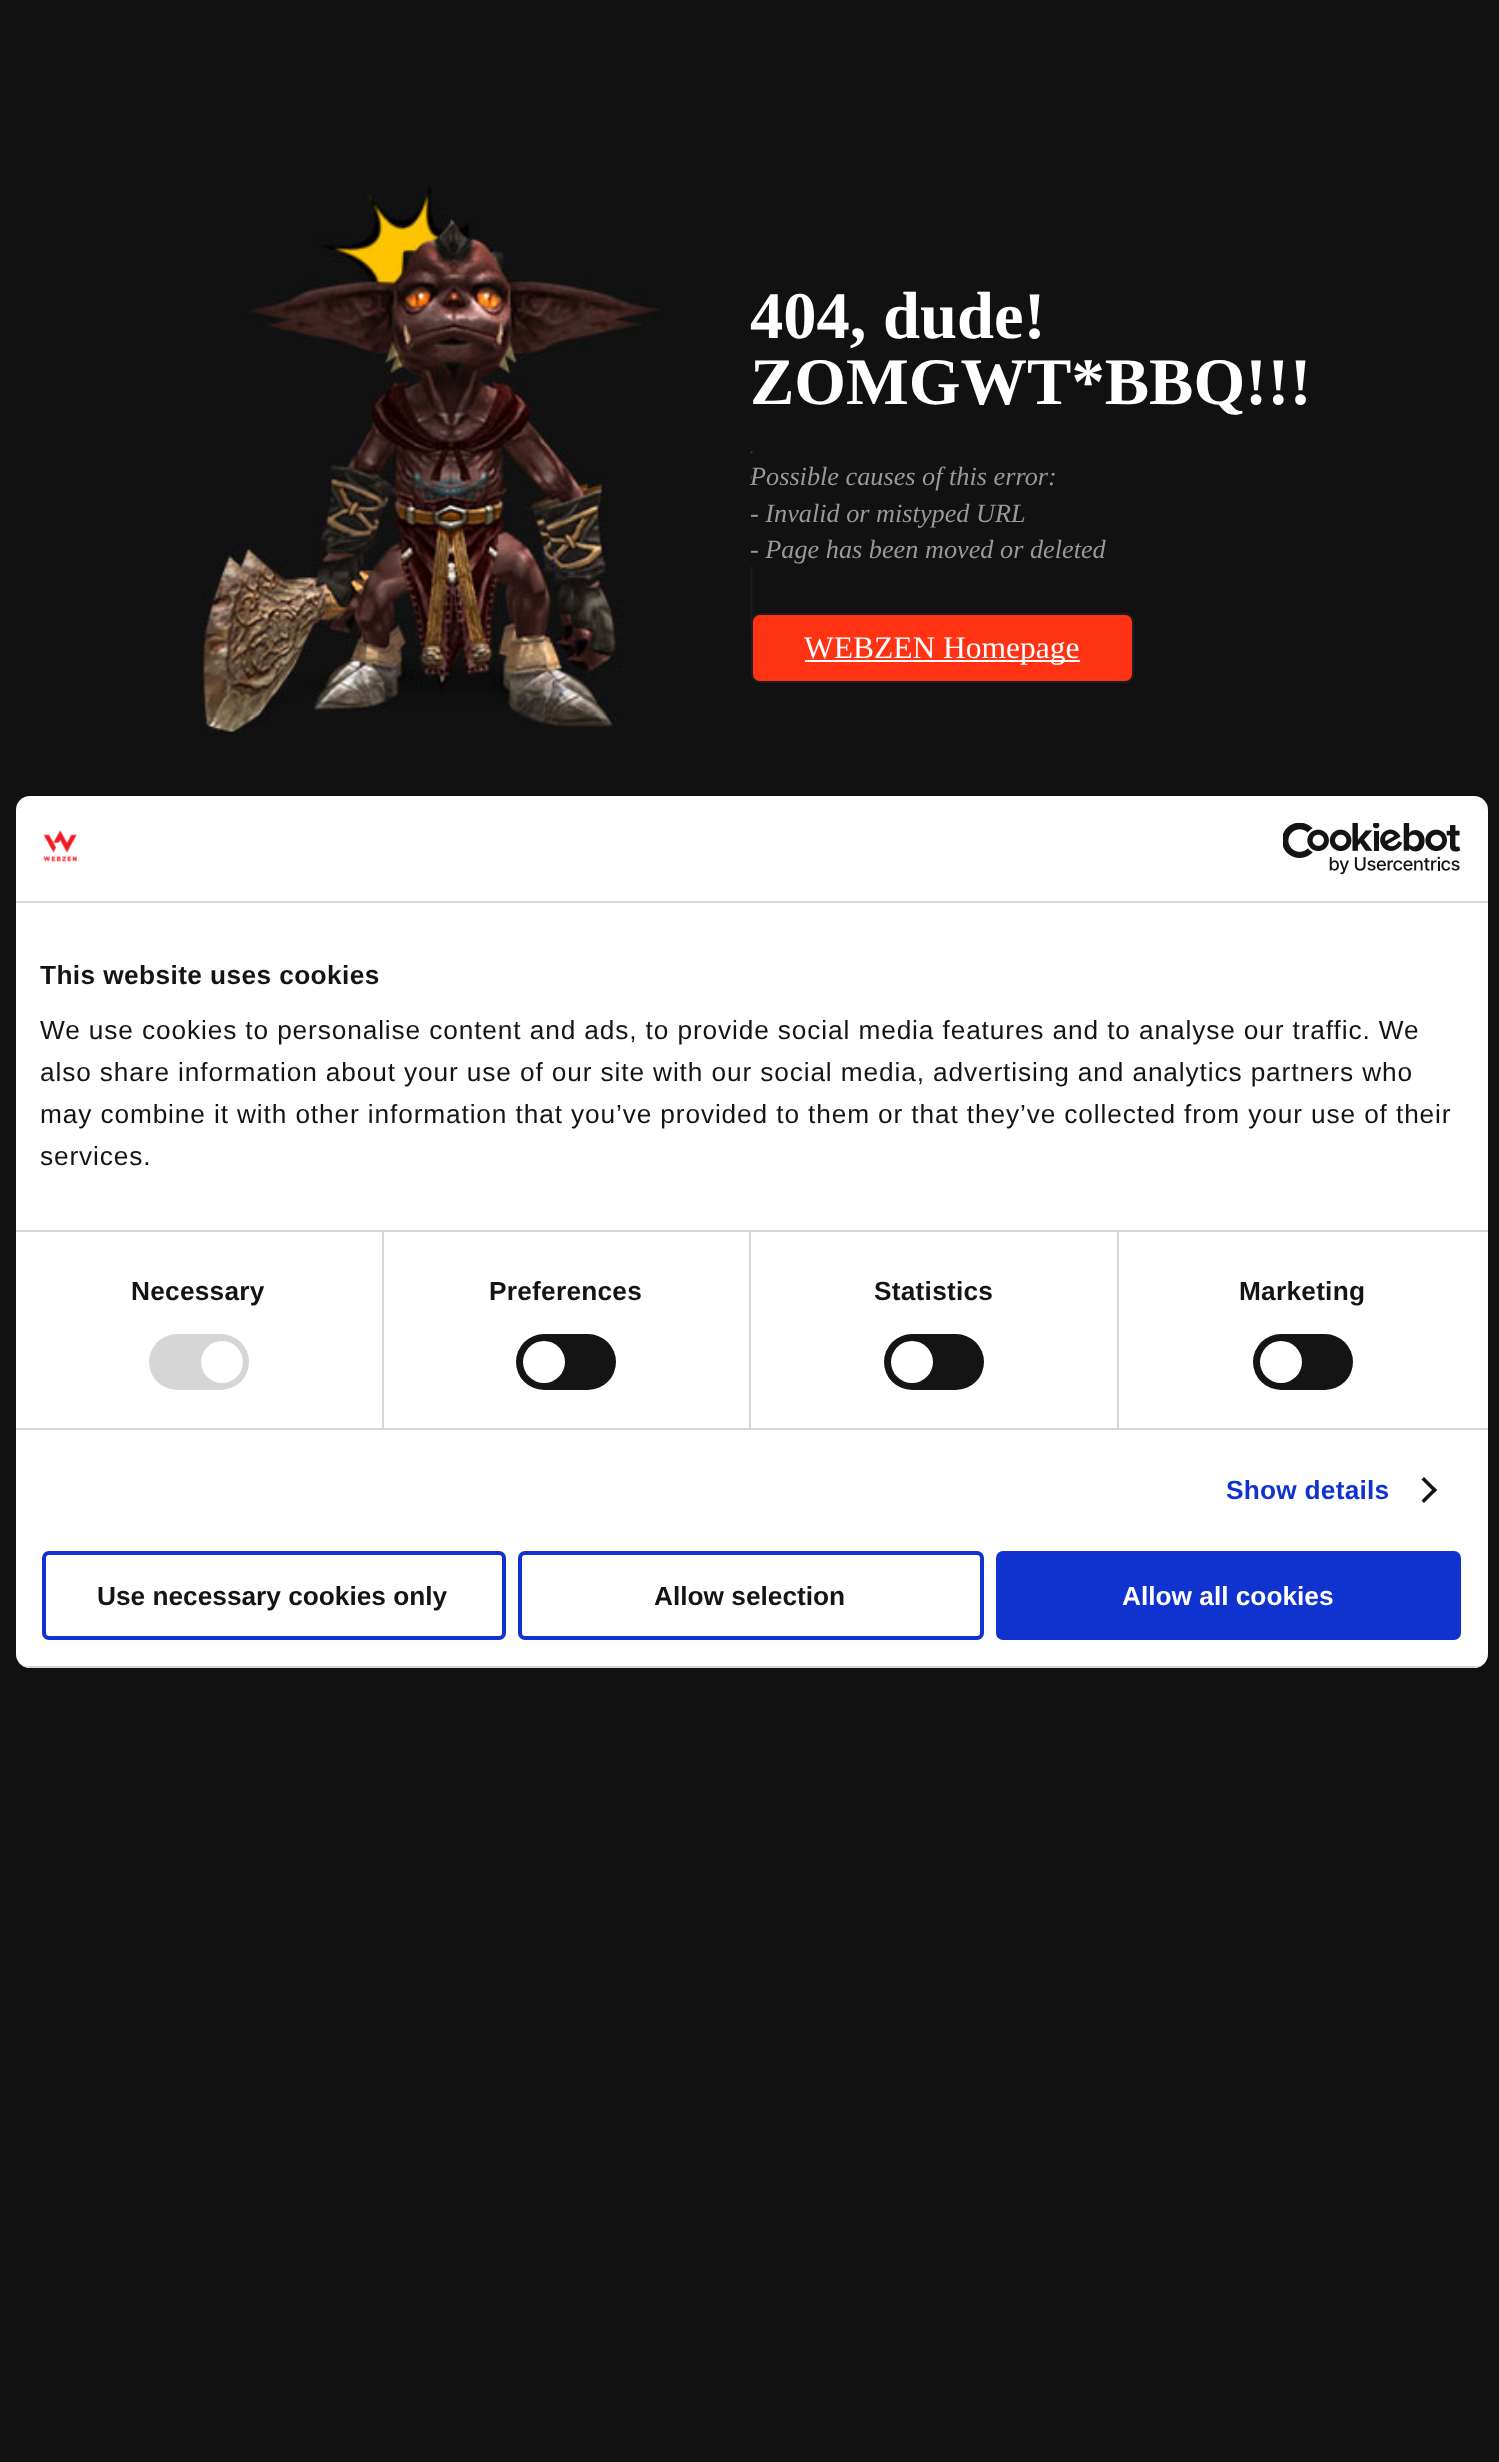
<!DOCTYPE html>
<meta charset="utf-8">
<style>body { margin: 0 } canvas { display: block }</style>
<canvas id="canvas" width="1499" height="2462"></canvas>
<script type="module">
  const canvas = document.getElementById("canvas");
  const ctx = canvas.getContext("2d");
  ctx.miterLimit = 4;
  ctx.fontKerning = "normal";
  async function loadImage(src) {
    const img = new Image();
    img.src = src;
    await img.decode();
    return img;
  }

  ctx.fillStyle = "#111111";
  ctx.fillRect(0, 0, 1499, 2462);
  ctx.drawImage(await loadImage("img1.png"), 202, 186, 551, 554);
  ctx.font = "bold 66.5px Liberation Serif";
  ctx.fillStyle = "#ffffff";
  ctx.fillText("404, dude!", 750, 338);
  ctx.fillText("ZOMGWT*BBQ!!!", 750, 404);
  ctx.font = "italic 26.25px Liberation Serif";
  ctx.fillStyle = "#999999";
  ctx.fillText("Possible causes of this error:", 750, 485);
  ctx.fillText("- Invalid or mistyped URL", 750, 522);
  ctx.fillText("- Page has been moved or deleted", 750, 558);
  ctx.fillStyle = "#ff3214";
  ctx.beginPath();
  ctx.roundRect(752, 614, 381, 68, 8);
  ctx.fill();
  ctx.strokeStyle = "#1d1d1d";
  ctx.lineWidth = 2;
  ctx.stroke();
  ctx.fillStyle = "#ffffff";
  ctx.fillRect(805, 660, 275, 2);
  ctx.font = "31.5px Liberation Serif";
  ctx.fillText("WEBZEN Homepage", 804, 658);
  ctx.beginPath();
  ctx.roundRect(16, 796, 1472, 872, 14);
  ctx.fill();
  ctx.fillStyle = "#d6d6d6";
  ctx.fillRect(16, 901, 1472, 2);
  ctx.drawImage(await loadImage("img2.png"), 43, 830, 35, 32);
  ctx.drawImage(await loadImage("img3.png"), 1283, 823, 178, 52);
  ctx.fillRect(16, 1230, 1472, 2);
  ctx.letterSpacing = "0.4px";
  ctx.font = "bold 26.25px Liberation Sans";
  ctx.fillStyle = "#141414";
  ctx.fillText("This website uses cookies", 40, 984);
  ctx.letterSpacing = "0.88px";
  ctx.font = "26.25px Liberation Sans";
  ctx.fillText("We use cookies to personalise content and ads, to provide social media features and to analyse our traffic. We", 40, 1039);
  ctx.fillText("also share information about your use of our site with our social media, advertising and analytics partners who", 40, 1081);
  ctx.fillText("may combine it with other information that you’ve provided to them or that they’ve collected from your use of their", 40, 1123);
  ctx.fillText("services.", 40, 1165);
  ctx.fillStyle = "#d6d6d6";
  ctx.fillRect(16, 1428, 1472, 2);
  ctx.fillRect(382, 1232, 2, 196);
  ctx.letterSpacing = "0.25px";
  ctx.font = "bold 26.25px Liberation Sans";
  ctx.fillStyle = "#141414";
  ctx.fillText("Necessary", 131, 1300);
  ctx.fillStyle = "#d6d6d6";
  ctx.beginPath();
  ctx.roundRect(149, 1334, 100, 56, 28);
  ctx.fill();
  ctx.fillStyle = "#ffffff";
  ctx.beginPath();
  ctx.arc(222, 1362, 21, 0, Math.PI * 2);
  ctx.fill();
  ctx.fillStyle = "#d6d6d6";
  ctx.fillRect(749, 1232, 2, 196);
  ctx.fillStyle = "#141414";
  ctx.fillText("Preferences", 489, 1300);
  ctx.beginPath();
  ctx.roundRect(516, 1334, 100, 56, 28);
  ctx.fill();
  ctx.fillStyle = "#ffffff";
  ctx.beginPath();
  ctx.arc(544, 1362, 21, 0, Math.PI * 2);
  ctx.fill();
  ctx.fillStyle = "#d6d6d6";
  ctx.fillRect(1117, 1232, 2, 196);
  ctx.fillStyle = "#141414";
  ctx.fillText("Statistics", 874, 1300);
  ctx.beginPath();
  ctx.roundRect(884, 1334, 100, 56, 28);
  ctx.fill();
  ctx.fillStyle = "#ffffff";
  ctx.beginPath();
  ctx.arc(912, 1362, 21, 0, Math.PI * 2);
  ctx.fill();
  ctx.fillStyle = "#141414";
  ctx.fillText("Marketing", 1239, 1300);
  ctx.beginPath();
  ctx.roundRect(1253, 1334, 100, 56, 28);
  ctx.fill();
  ctx.fillStyle = "#ffffff";
  ctx.beginPath();
  ctx.arc(1281, 1362, 21, 0, Math.PI * 2);
  ctx.fill();
  ctx.fillStyle = "#1032cf";
  ctx.fillText("Show details", 1226, 1499);
  ctx.fillStyle = "#141414";
  ctx.beginPath();
  ctx.moveTo(1424, 1477);
  ctx.lineTo(1437, 1490);
  ctx.lineTo(1434.5, 1492.5);
  ctx.lineTo(1421.5, 1479.5);
  ctx.closePath();
  ctx.fill();
  ctx.beginPath();
  ctx.moveTo(1434.5, 1487.5);
  ctx.lineTo(1437, 1490);
  ctx.lineTo(1424, 1503);
  ctx.lineTo(1421.5, 1500.5);
  ctx.closePath();
  ctx.fill();
  ctx.save();
  ctx.beginPath();
  ctx.roundRect(16, 796, 1472, 872, 14);
  ctx.clip();
  ctx.fillStyle = "#d6d6d6";
  ctx.fillRect(16, 1666, 1472, 2);
  ctx.restore();
  ctx.beginPath();
  ctx.roundRect(44, 1553, 460, 85, 5);
  ctx.strokeStyle = "#1032cf";
  ctx.lineWidth = 4;
  ctx.stroke();
  ctx.letterSpacing = "0px";
  ctx.fillText("Use necessary cookies only", 97, 1605);
  ctx.beginPath();
  ctx.roundRect(520, 1553, 462, 85, 5);
  ctx.stroke();
  ctx.fillText("Allow selection", 654, 1605);
  ctx.fillStyle = "#1032cf";
  ctx.beginPath();
  ctx.roundRect(998, 1553, 461, 85, 5);
  ctx.fill();
  ctx.stroke();
  ctx.fillStyle = "#ffffff";
  ctx.fillText("Allow all cookies", 1122, 1605);
</script>
